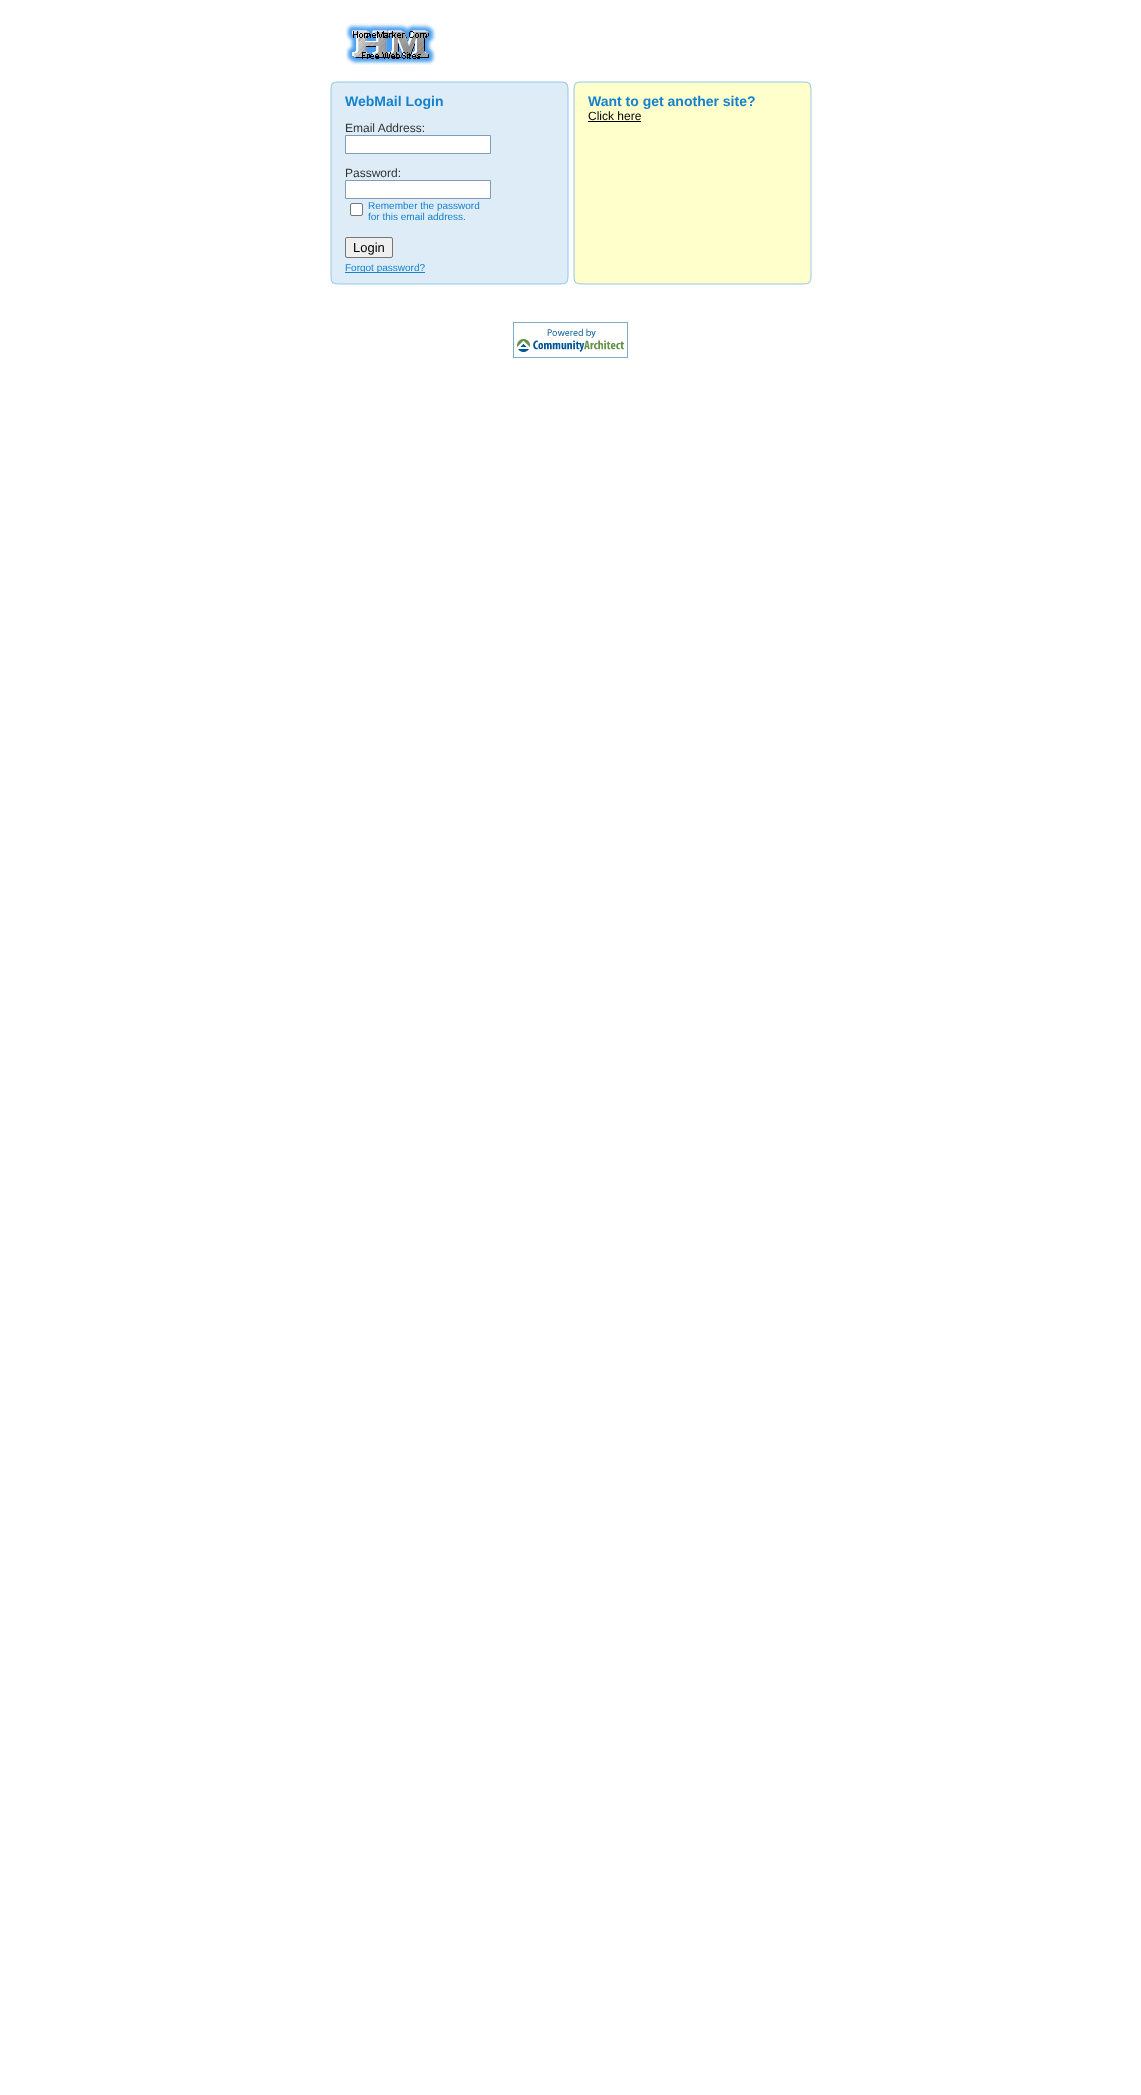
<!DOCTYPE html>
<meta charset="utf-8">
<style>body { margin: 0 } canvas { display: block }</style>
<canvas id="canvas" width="1141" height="2095"></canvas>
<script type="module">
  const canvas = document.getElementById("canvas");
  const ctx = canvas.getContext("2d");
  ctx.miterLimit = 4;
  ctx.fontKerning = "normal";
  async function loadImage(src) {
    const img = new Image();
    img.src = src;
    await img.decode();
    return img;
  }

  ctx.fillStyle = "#ffffff";
  ctx.fillRect(0, 0, 1141, 2095);
  ctx.drawImage(await loadImage("img1.png"), 346, 23, 90, 42);
  ctx.drawImage(await loadImage("img2.png"), 330, 81, 239, 8);
  ctx.drawImage(await loadImage("img3.png"), 573, 81, 239, 8);
  ctx.drawImage(await loadImage("img4.png"), 330, 89, 239, 188);
  ctx.font = "bold 14px Liberation Sans";
  ctx.fillStyle = "#1682cc";
  ctx.fillText("WebMail Login", 345, 106);
  ctx.font = "12px Liberation Sans";
  ctx.fillStyle = "#333333";
  ctx.fillText("Email Address:", 345, 132);
  ctx.fillStyle = "#ffffff";
  ctx.beginPath();
  ctx.rect(345.5, 135.5, 145, 18);
  ctx.fill();
  ctx.strokeStyle = "#7f9db9";
  ctx.stroke();
  ctx.fillStyle = "#333333";
  ctx.fillText("Password:", 345, 177);
  ctx.fillStyle = "#ffffff";
  ctx.beginPath();
  ctx.rect(345.5, 180.5, 145, 18);
  ctx.fill();
  ctx.stroke();
  ctx.beginPath();
  ctx.roundRect(350.5, 203.5, 12, 12, 1.5);
  ctx.fill();
  ctx.strokeStyle = "#767676";
  ctx.stroke();
  ctx.font = "10px Liberation Sans";
  ctx.fillStyle = "#1682cc";
  ctx.fillText("Remember the password", 368, 209);
  ctx.fillText("for this email address.", 368, 220);
  ctx.fillStyle = "#efefef";
  ctx.beginPath();
  ctx.roundRect(345.5, 237.5, 47, 20, 1.5);
  ctx.fill();
  ctx.stroke();
  ctx.font = "13px Liberation Sans";
  ctx.fillStyle = "#000000";
  ctx.fillText("Login", 353, 252);
  ctx.fillStyle = "#1682cc";
  ctx.fillRect(345, 272, 80, 1);
  ctx.font = "10px Liberation Sans";
  ctx.fillText("Forgot password?", 345, 271);
  ctx.drawImage(await loadImage("img5.png"), 573, 89, 239, 188);
  ctx.font = "bold 14px Liberation Sans";
  ctx.fillText("Want to get another site?", 588, 106);
  ctx.font = "12px Liberation Sans";
  ctx.fillStyle = "#000000";
  ctx.fillText("Click here", 588, 120);
  ctx.fillRect(588, 121, 53, 1);
  ctx.drawImage(await loadImage("img6.png"), 330, 277, 239, 8);
  ctx.drawImage(await loadImage("img7.png"), 573, 277, 239, 8);
  ctx.drawImage(await loadImage("img8.png"), 513, 322, 115, 36);
</script>
